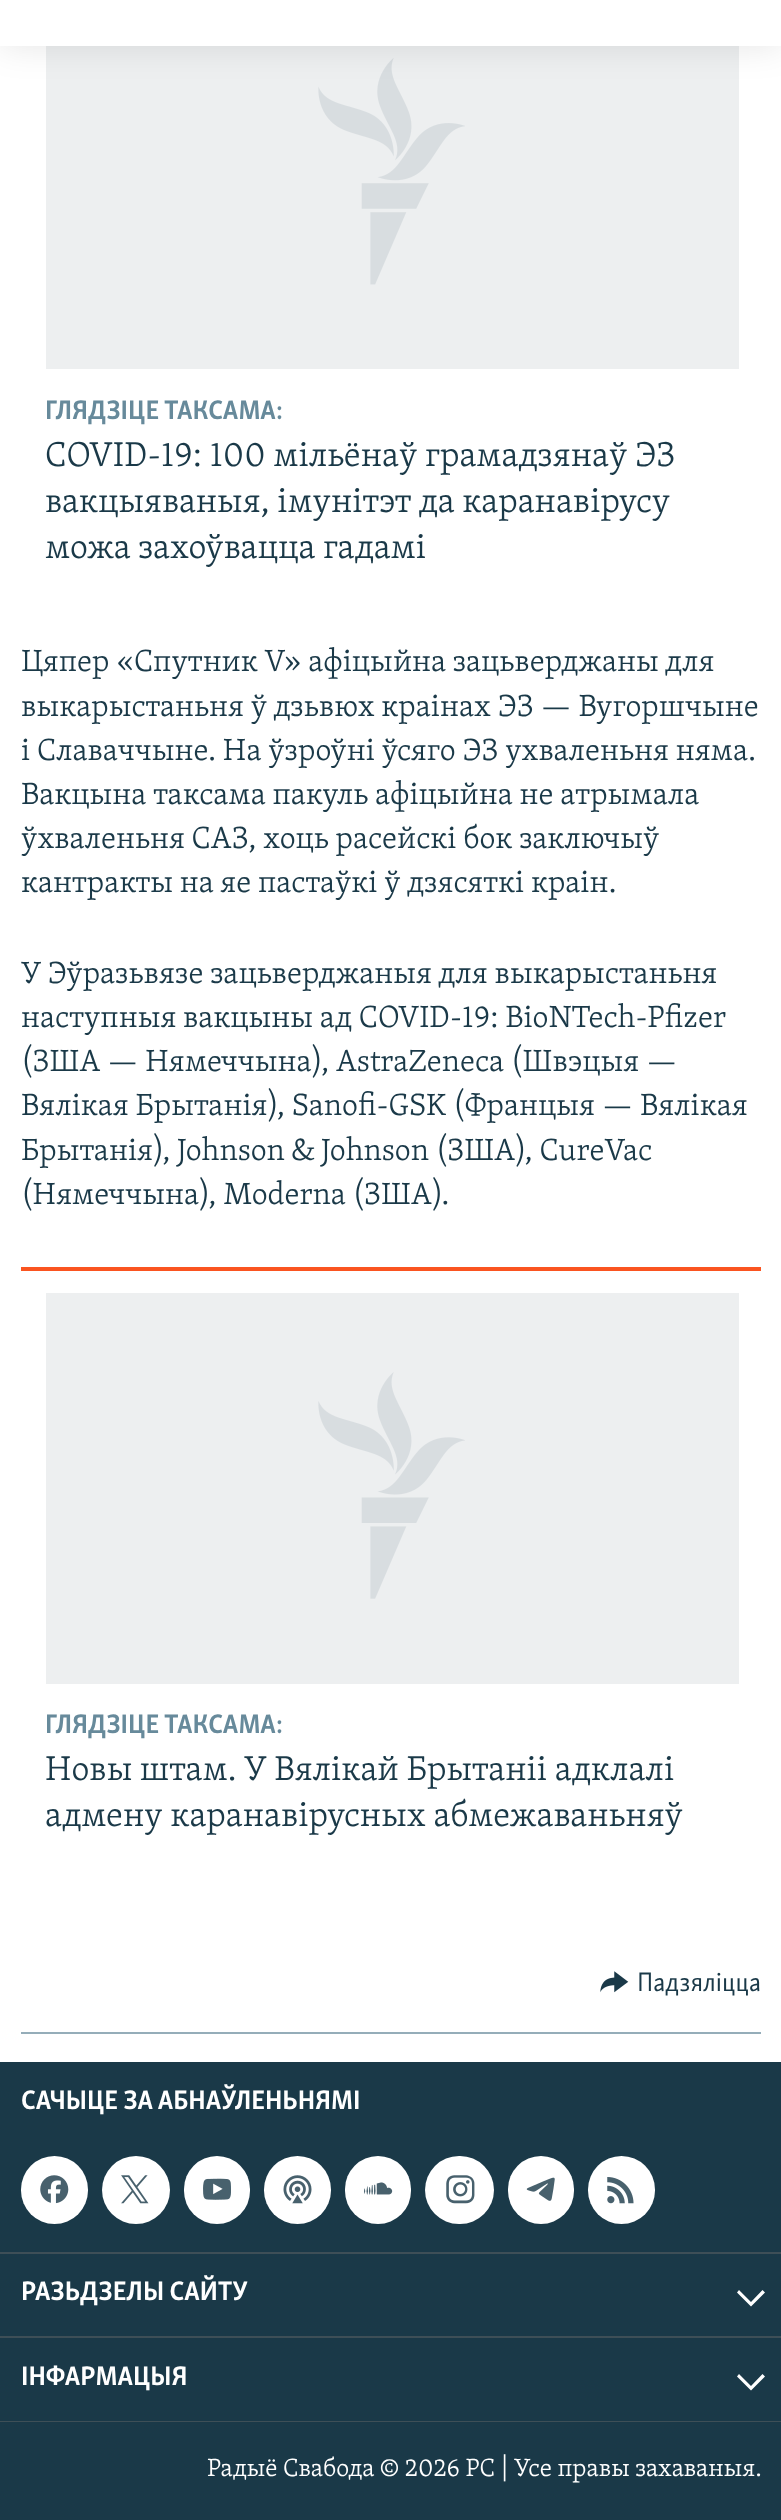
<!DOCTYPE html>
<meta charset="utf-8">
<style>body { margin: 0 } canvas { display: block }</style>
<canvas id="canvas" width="781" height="2520"></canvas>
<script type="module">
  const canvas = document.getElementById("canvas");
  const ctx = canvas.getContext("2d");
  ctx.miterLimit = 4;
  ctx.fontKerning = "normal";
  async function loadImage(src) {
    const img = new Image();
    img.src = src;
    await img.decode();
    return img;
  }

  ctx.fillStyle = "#ffffff";
  ctx.fillRect(0, 0, 781, 2520);
  ctx.fillStyle = "#edeff0";
  ctx.fillRect(46, 46, 693, 323);
  ctx.drawImage(await loadImage("img1.png"), 318, 58, 147, 227);
  ctx.fillStyle = "rgba(0, 0, 0, 0.1)";
  ctx.filter = "blur(17.5px)";
  ctx.beginPath();
  ctx.rect(0, -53, 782, 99);
  ctx.fill();
  ctx.filter = "none";
  ctx.fillStyle = "#ffffff";
  ctx.fillRect(0, 0, 781, 46);
  ctx.font = "bold 27.5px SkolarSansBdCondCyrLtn";
  ctx.fillStyle = "#678a9b";
  ctx.fillText("ГЛЯДЗІЦЕ ТАКСАМА:", 45, 419);
  ctx.font = "300 35.4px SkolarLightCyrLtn";
  ctx.fillStyle = "#1a3948";
  ctx.fillText("COVID-19: 100 мільёнаў грамадзянаў ЭЗ", 45, 466);
  ctx.fillText("вакцыяваныя, імунітэт да каранавірусу", 45, 512);
  ctx.fillText("можа захоўвацца гадамі", 45, 558);
  ctx.font = "300 31.5px SkolarLightCyrLtn";
  ctx.fillText("Цяпер «Спутник V» афіцыйна зацьверджаны для", 21, 671);
  ctx.fillText("выкарыстаньня ў дзьвюх краінах ЭЗ — Вугоршчыне", 21, 716);
  ctx.fillText("і Славаччыне. На ўзроўні ўсяго ЭЗ ухваленьня няма.", 21, 760);
  ctx.fillText("Вакцына таксама пакуль афіцыйна не атрымала", 21, 804);
  ctx.fillText("ўхваленьня САЗ, хоць расейскі бок заключыў", 21, 848);
  ctx.fillText("кантракты на яе пастаўкі ў дзясяткі краін.", 21, 892);
  ctx.fillText("У Эўразьвязе зацьверджаныя для выкарыстаньня", 21, 983);
  ctx.fillText("наступныя вакцыны ад COVID-19: BioNTech-Pfizer", 21, 1027);
  ctx.fillText("(ЗША — Нямеччына), AstraZeneca (Швэцыя —", 21, 1071);
  ctx.fillText("Вялікая Брытанія), Sanofi-GSK (Францыя — Вялікая", 21, 1115);
  ctx.fillText("Брытанія), Johnson & Johnson (ЗША), CureVac", 21, 1160);
  ctx.fillText("(Нямеччына), Moderna (ЗША).", 21, 1204);
  ctx.fillStyle = "#fa5420";
  ctx.fillRect(21, 1267, 740, 4);
  ctx.fillStyle = "#edeff0";
  ctx.fillRect(46, 1293, 693, 391);
  ctx.drawImage(await loadImage("img2.png"), 318, 1372, 147, 227);
  ctx.font = "bold 27.5px SkolarSansBdCondCyrLtn";
  ctx.fillStyle = "#678a9b";
  ctx.fillText("ГЛЯДЗІЦЕ ТАКСАМА:", 45, 1733);
  ctx.font = "300 35.4px SkolarLightCyrLtn";
  ctx.fillStyle = "#1a3948";
  ctx.fillText("Новы штам. У Вялікай Брытаніі адклалі", 45, 1780);
  ctx.fillText("адмену каранавірусных абмежаваньняў", 45, 1826);
  ctx.fillStyle = "#95adb9";
  ctx.fillRect(21, 2032, 740, 2);
  ctx.drawImage(await loadImage("img3.png"), 600, 1971, 29, 22);
  ctx.font = "27.5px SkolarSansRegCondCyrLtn";
  ctx.fillStyle = "#1a3948";
  ctx.fillText("Падзяліцца", 637, 1991);
  ctx.fillRect(0, 2062, 781, 458);
  ctx.fillStyle = "#3e4f57";
  ctx.fillRect(0, 2421, 781, 1);
  ctx.font = "bold 27.5px SkolarSansBdCondCyrLtn";
  ctx.fillStyle = "#ffffff";
  ctx.fillText("САЧЫЦЕ ЗА АБНАЎЛЕНЬНЯМІ", 21, 2109);
  ctx.beginPath();
  ctx.roundRect(21, 2156, 67, 68, 33.5);
  ctx.fill();
  ctx.drawImage(await loadImage("img4.png"), 40, 2175, 29, 29);
  ctx.beginPath();
  ctx.arc(136, 2190, 34, 0, Math.PI * 2);
  ctx.fill();
  ctx.drawImage(await loadImage("img5.png"), 121, 2175, 28, 29);
  ctx.beginPath();
  ctx.roundRect(184, 2156, 66, 68, 33);
  ctx.fill();
  ctx.drawImage(await loadImage("img6.png"), 203, 2178, 28, 22);
  ctx.beginPath();
  ctx.roundRect(264, 2156, 67, 68, 33.5);
  ctx.fill();
  ctx.drawImage(await loadImage("img7.png"), 283, 2175, 29, 29);
  ctx.beginPath();
  ctx.roundRect(345, 2156, 66, 68, 33);
  ctx.fill();
  ctx.drawImage(await loadImage("img8.png"), 364, 2182, 29, 13);
  ctx.beginPath();
  ctx.roundRect(425, 2156, 69, 68, 34);
  ctx.fill();
  ctx.drawImage(await loadImage("img9.png"), 446, 2175, 29, 29);
  ctx.beginPath();
  ctx.roundRect(508, 2156, 66, 68, 33);
  ctx.fill();
  ctx.drawImage(await loadImage("img10.png"), 526, 2177, 29, 24);
  ctx.beginPath();
  ctx.roundRect(588, 2156, 67, 68, 33.5);
  ctx.fill();
  ctx.drawImage(await loadImage("img11.png"), 607, 2177, 27, 27);
  ctx.fillStyle = "#3e4f57";
  ctx.fillRect(0, 2252, 781, 2);
  ctx.fillStyle = "#ffffff";
  ctx.fillText("РАЗЬДЗЕЛЫ САЙТУ", 21, 2300);
  ctx.beginPath();
  ctx.moveTo(737, 2292.5);
  ctx.lineTo(751, 2306.5);
  ctx.lineTo(765, 2292.5);
  ctx.lineTo(762.5, 2290);
  ctx.lineTo(751, 2302);
  ctx.lineTo(739, 2290);
  ctx.closePath();
  ctx.fill();
  ctx.fillStyle = "#3e4f57";
  ctx.fillRect(0, 2336, 781, 2);
  ctx.fillStyle = "#ffffff";
  ctx.fillText("ІНФАРМАЦЫЯ", 21, 2385);
  ctx.beginPath();
  ctx.moveTo(737, 2376.5);
  ctx.lineTo(751, 2390.5);
  ctx.lineTo(765, 2376.5);
  ctx.lineTo(762.5, 2374);
  ctx.lineTo(751, 2386);
  ctx.lineTo(739, 2374);
  ctx.closePath();
  ctx.fill();
  ctx.font = "300 25.6px SkolarLightCyrLtn";
  ctx.fillText("Радыё Свабода © 2026 РС | Усе правы захаваныя.", 207, 2476);
</script>
